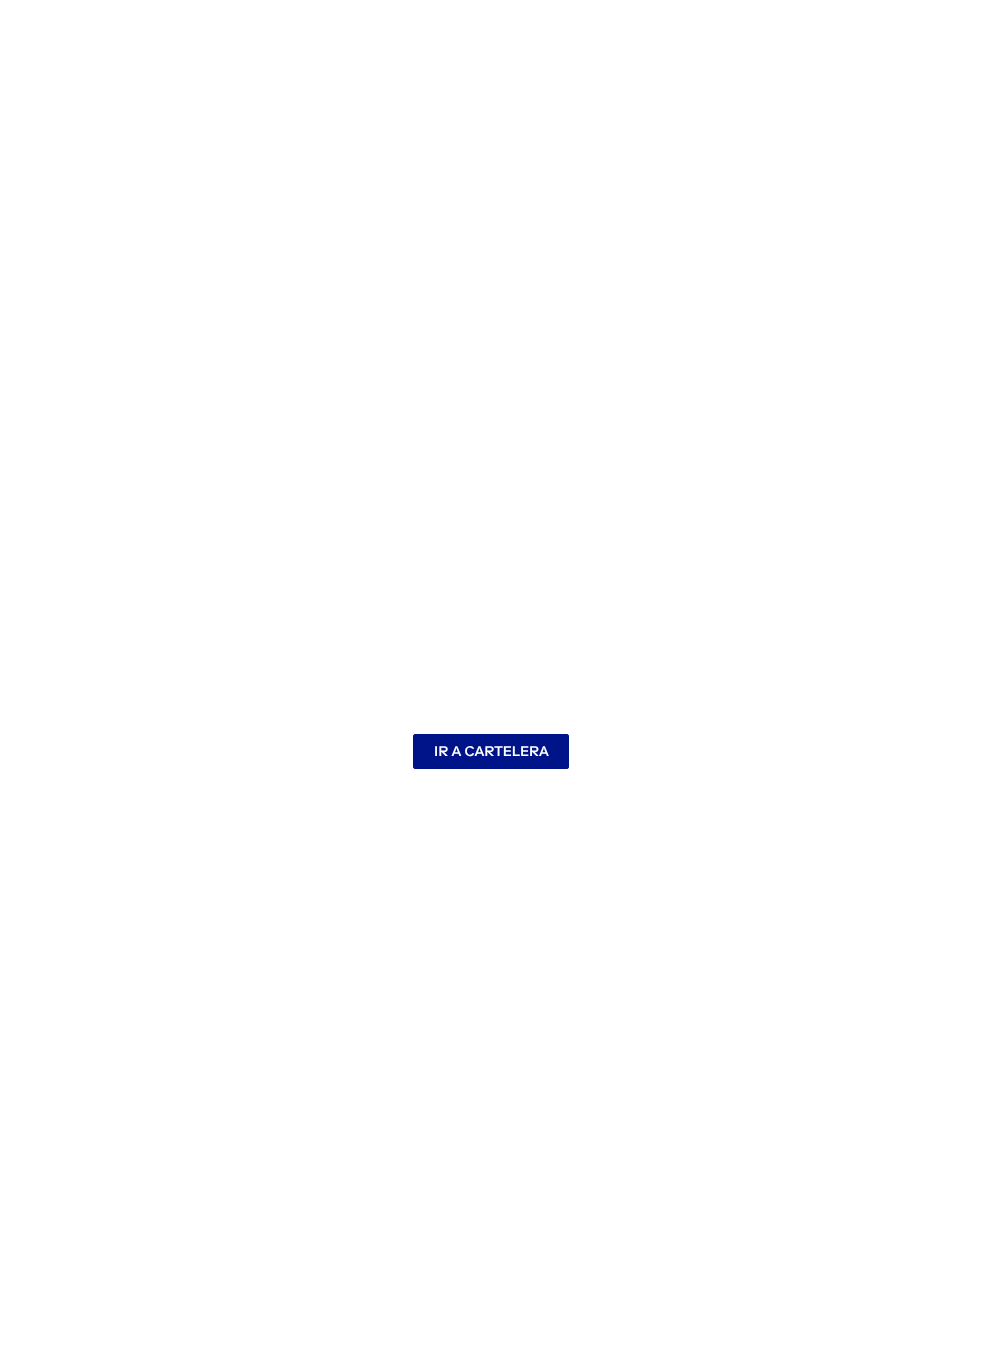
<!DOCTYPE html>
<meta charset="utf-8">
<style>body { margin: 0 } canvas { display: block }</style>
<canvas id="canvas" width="982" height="1366"></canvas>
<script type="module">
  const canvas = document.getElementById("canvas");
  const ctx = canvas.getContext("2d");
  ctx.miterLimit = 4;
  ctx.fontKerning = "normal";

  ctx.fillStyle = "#ffffff";
  ctx.fillRect(0, 0, 982, 1366);
  ctx.fillStyle = "#001489";
  ctx.beginPath();
  ctx.roundRect(413.5, 734.5, 155, 34, 1.5);
  ctx.fill();
  ctx.strokeStyle = "#001489";
  ctx.stroke();
  ctx.font = "500 14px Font";
  ctx.fillStyle = "#ffffff";
  ctx.fillText("IR A CARTELERA", 434, 756);
</script>
